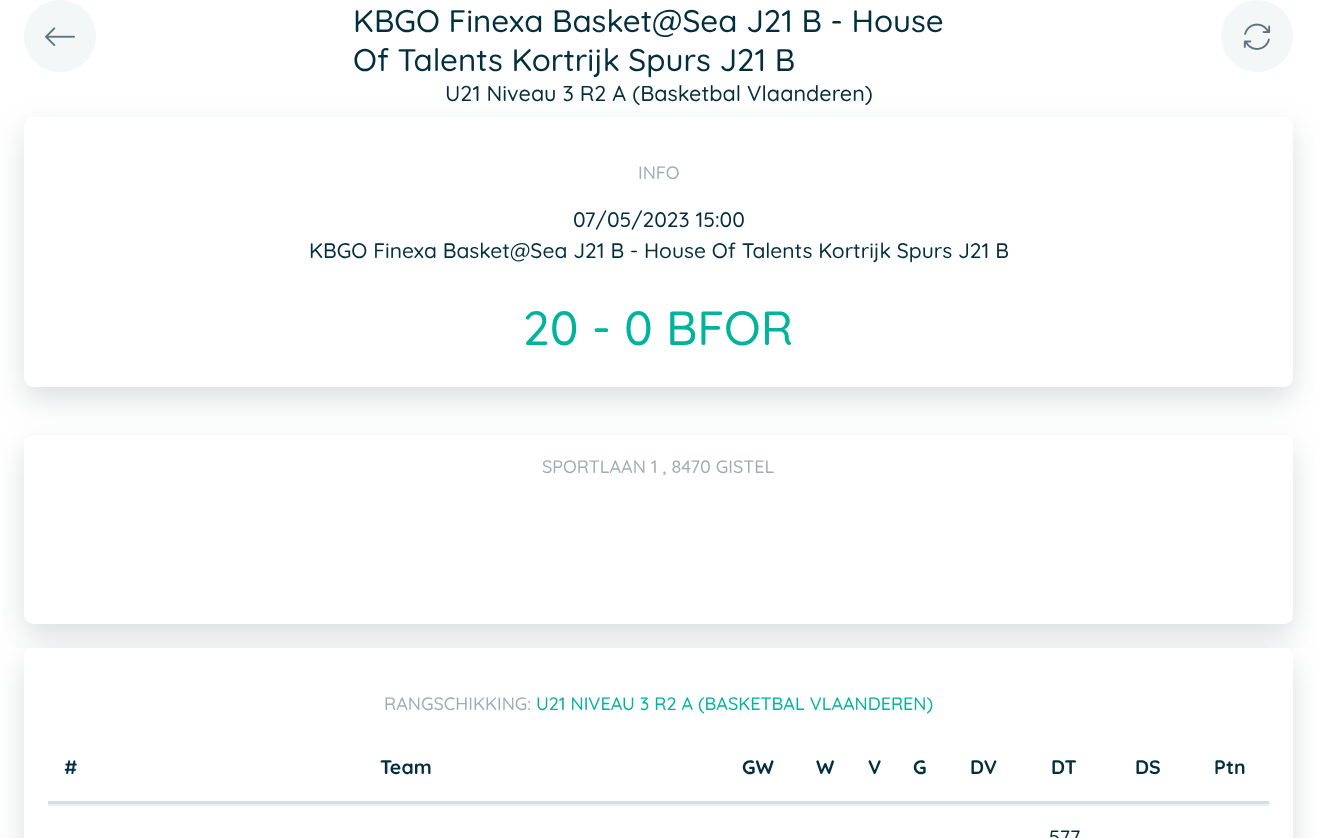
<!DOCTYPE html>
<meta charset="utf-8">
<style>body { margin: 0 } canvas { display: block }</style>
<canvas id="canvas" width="1317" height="838"></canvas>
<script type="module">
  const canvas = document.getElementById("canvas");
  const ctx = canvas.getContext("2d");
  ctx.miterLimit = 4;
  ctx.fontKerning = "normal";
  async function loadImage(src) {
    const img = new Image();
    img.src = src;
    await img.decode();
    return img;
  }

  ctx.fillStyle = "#ffffff";
  ctx.fillRect(0, 0, 1317, 838);
  ctx.fillStyle = "#f4f7f7";
  ctx.beginPath();
  ctx.arc(60, 36, 35, 0, Math.PI * 2);
  ctx.fill();
  ctx.strokeStyle = "#f4f7f7";
  ctx.lineWidth = 2;
  ctx.stroke();
  ctx.drawImage(await loadImage("img1.png"), 45, 27, 30, 20);
  ctx.font = "500 31.25px Quicksand";
  ctx.fillStyle = "#022e3e";
  ctx.fillText("KBGO Finexa Basket@Sea J21 B - House", 353, 32);
  ctx.fillText("Of Talents Kortrijk Spurs J21 B", 353, 71);
  ctx.fillStyle = "rgba(71, 92, 93, 0.2)";
  ctx.filter = "blur(15px)";
  ctx.beginPath();
  ctx.roundRect(24, 129, 1269, 270, 9);
  ctx.fill();
  ctx.filter = "none";
  ctx.font = "500 21.6px Quicksand";
  ctx.fillStyle = "#022e3e";
  ctx.fillText("U21 Niveau 3 R2 A (Basketbal Vlaanderen)", 445, 101);
  ctx.fillStyle = "#f4f7f7";
  ctx.beginPath();
  ctx.arc(1257, 36, 35, 0, Math.PI * 2);
  ctx.fill();
  ctx.stroke();
  ctx.drawImage(await loadImage("img2.png"), 1243, 23, 28, 27);
  ctx.fillStyle = "#ffffff";
  ctx.beginPath();
  ctx.roundRect(24, 117, 1269, 270, 9);
  ctx.fill();
  ctx.font = "500 18px Quicksand";
  ctx.fillStyle = "#a3adae";
  ctx.fillText("INFO", 638, 179);
  ctx.font = "500 21px Quicksand";
  ctx.fillStyle = "#022e3e";
  ctx.fillText("07/05/2023 15:00", 573, 227);
  ctx.fillText("KBGO Finexa Basket@Sea J21 B - House Of Talents Kortrijk Spurs J21 B", 309, 258);
  ctx.font = "500 48px Quicksand";
  ctx.fillStyle = "#00b49c";
  ctx.fillText("20 - 0 BFOR", 523, 345);
  ctx.save();
  ctx.beginPath();
  ctx.rect(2, 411, 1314, 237);
  ctx.clip();
  ctx.fillStyle = "rgba(71, 92, 93, 0.2)";
  ctx.filter = "blur(15px)";
  ctx.beginPath();
  ctx.roundRect(24, 447, 1269, 189, 9);
  ctx.fill();
  ctx.filter = "none";
  ctx.restore();
  ctx.fillStyle = "#ffffff";
  ctx.beginPath();
  ctx.roundRect(24, 435, 1269, 189, 9);
  ctx.fill();
  ctx.font = "500 18px Quicksand";
  ctx.fillStyle = "#a3adae";
  ctx.fillText("SPORTLAAN 1 , 8470 GISTEL", 542, 473);
  ctx.save();
  ctx.beginPath();
  ctx.moveTo(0, 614);
  ctx.lineTo(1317, 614);
  ctx.lineTo(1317, 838);
  ctx.lineTo(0, 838);
  ctx.closePath();
  ctx.moveTo(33, 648);
  ctx.lineTo(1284, 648);
  ctx.bezierCurveTo(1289, 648, 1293, 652, 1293, 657);
  ctx.lineTo(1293, 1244);
  ctx.bezierCurveTo(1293, 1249, 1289, 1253, 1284, 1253);
  ctx.lineTo(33, 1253);
  ctx.bezierCurveTo(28, 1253, 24, 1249, 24, 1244);
  ctx.lineTo(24, 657);
  ctx.bezierCurveTo(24, 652, 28, 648, 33, 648);
  ctx.closePath();
  ctx.clip("evenodd");
  ctx.fillStyle = "rgba(71, 92, 93, 0.2)";
  ctx.filter = "blur(15px)";
  ctx.beginPath();
  ctx.roundRect(24, 660, 1269, 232, 9);
  ctx.fill();
  ctx.filter = "none";
  ctx.restore();
  ctx.fillText("RANGSCHIKKING:", 384, 710);
  ctx.fillStyle = "#00b49c";
  ctx.fillText("U21 NIVEAU 3 R2 A (BASKETBAL VLAANDEREN)", 536, 710);
  ctx.fillStyle = "#d4dfe1";
  ctx.fillRect(48, 801, 1221, 3);
  ctx.font = "bold 19.5px Quicksand";
  ctx.fillStyle = "#022e3e";
  ctx.fillText("#", 64, 774);
  ctx.fillText("Team", 380, 774);
  ctx.fillText("GW", 742, 774);
  ctx.fillText("W", 816, 774);
  ctx.fillText("V", 868, 774);
  ctx.fillText("G", 913, 774);
  ctx.fillText("DV", 970, 774);
  ctx.fillText("DT", 1051, 774);
  ctx.fillText("DS", 1135, 774);
  ctx.fillText("Ptn", 1214, 774);
  ctx.fillStyle = "#eeeeee";
  ctx.fillRect(48, 804, 1221, 2);
  ctx.font = "500 19.5px Quicksand";
  ctx.fillStyle = "#022e3e";
  ctx.fillText("577", 1049, 844);
</script>
